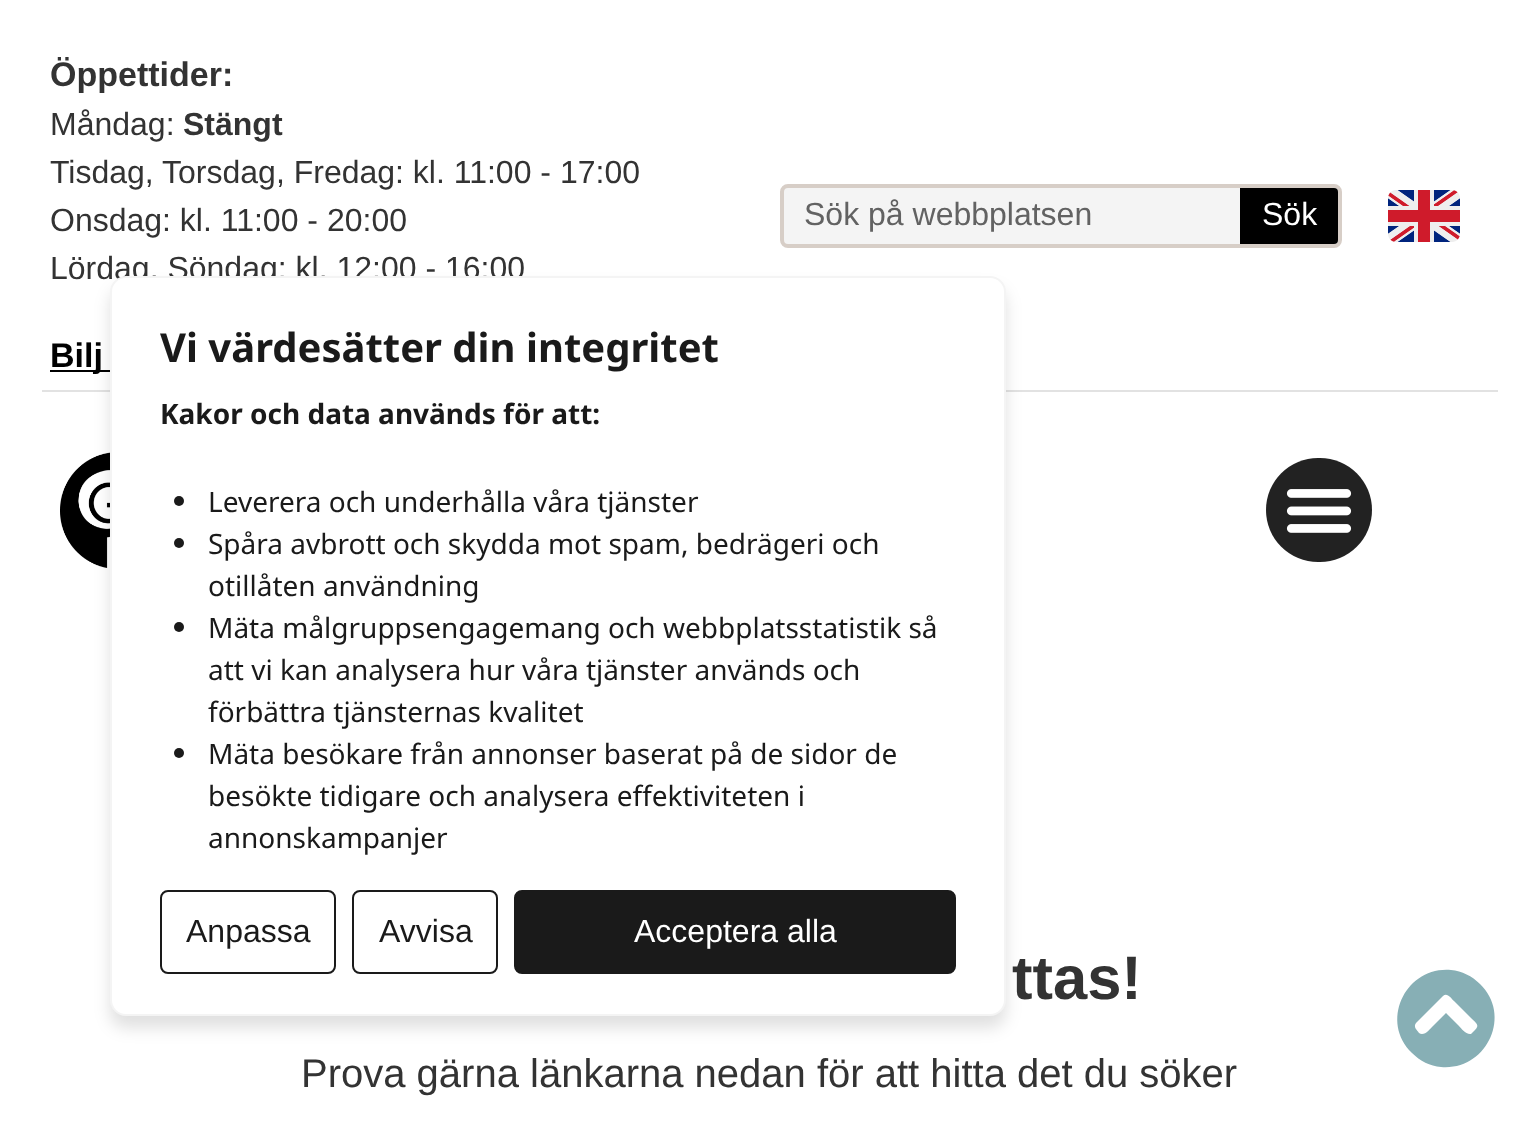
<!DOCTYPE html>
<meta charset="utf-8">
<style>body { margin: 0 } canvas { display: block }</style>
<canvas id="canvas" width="1538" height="1142"></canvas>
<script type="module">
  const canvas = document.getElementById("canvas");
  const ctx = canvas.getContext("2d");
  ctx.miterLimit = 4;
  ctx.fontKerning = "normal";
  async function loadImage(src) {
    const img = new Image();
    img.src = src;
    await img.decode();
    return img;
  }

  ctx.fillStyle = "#ffffff";
  ctx.fillRect(0, 0, 1538, 1142);
  ctx.fillStyle = "#e2e2e2";
  ctx.fillRect(42, 390, 1456, 2);
  ctx.font = "bold 34px Liberation Sans";
  ctx.fillStyle = "#333333";
  ctx.fillText("Öppettider:", 50, 86);
  ctx.font = "32px Liberation Sans";
  ctx.fillText("Måndag:", 50, 135);
  ctx.font = "bold 32px Liberation Sans";
  ctx.fillText("Stängt", 183, 135);
  ctx.font = "32px Liberation Sans";
  ctx.fillText("Tisdag, Torsdag, Fredag: kl. 11:00 - 17:00", 50, 183);
  ctx.fillText("Onsdag: kl. 11:00 - 20:00", 50, 231);
  ctx.fillText("Lördag, Söndag: kl. 12:00 - 16:00", 50, 279);
  ctx.fillStyle = "#000000";
  ctx.fillRect(50, 370, 60, 2);
  ctx.font = "bold 34px Liberation Sans";
  ctx.fillText("Bilj", 50, 367);
  ctx.fillStyle = "#f4f4f4";
  ctx.beginPath();
  ctx.roundRect(782, 186, 558, 60, 6);
  ctx.fill();
  ctx.strokeStyle = "#d7cec7";
  ctx.lineWidth = 4;
  ctx.stroke();
  ctx.font = "32px Liberation Sans";
  ctx.fillStyle = "#626262";
  ctx.fillText("Sök på webbplatsen", 804, 225);
  ctx.fillStyle = "#000000";
  ctx.beginPath();
  ctx.roundRect(1240, 188, 98, 56, [0, 4, 4, 0]);
  ctx.fill();
  ctx.fillStyle = "#ffffff";
  ctx.fillText("Sök", 1262, 225);
  ctx.drawImage(await loadImage("img1.png"), 1388, 190, 72, 52);
  ctx.drawImage(await loadImage("img2.png"), 60, 452, 50, 116);
  ctx.fillStyle = "#222222";
  ctx.beginPath();
  ctx.roundRect(1266, 458, 106, 104, 52);
  ctx.fill();
  ctx.drawImage(await loadImage("img3.png"), 1286, 489, 66, 44);
  ctx.fillStyle = "rgba(0, 0, 0, 0.12)";
  ctx.filter = "blur(8px)";
  ctx.beginPath();
  ctx.roundRect(110, 288, 896, 740, 16);
  ctx.fill();
  ctx.filter = "none";
  ctx.fillStyle = "#ffffff";
  ctx.beginPath();
  ctx.roundRect(111, 277, 894, 738, 15);
  ctx.fill();
  ctx.strokeStyle = "#f4f4f4";
  ctx.lineWidth = 2;
  ctx.stroke();
  ctx.font = "bold 40px Noto Sans";
  ctx.fillStyle = "#1a1a1a";
  ctx.fillText("Vi värdesätter din integritet", 160, 362);
  ctx.font = "bold 28px Noto Sans";
  ctx.fillText("Kakor och data används för att:", 160, 424);
  ctx.beginPath();
  ctx.arc(179, 501, 5, 0, Math.PI * 2);
  ctx.fill();
  ctx.font = "28px Noto Sans";
  ctx.fillText("Leverera och underhålla våra tjänster", 208, 512);
  ctx.beginPath();
  ctx.arc(179, 543, 5, 0, Math.PI * 2);
  ctx.fill();
  ctx.fillText("Spåra avbrott och skydda mot spam, bedrägeri och", 208, 554);
  ctx.fillText("otillåten användning", 208, 596);
  ctx.beginPath();
  ctx.arc(179, 627, 5, 0, Math.PI * 2);
  ctx.fill();
  ctx.fillText("Mäta målgruppsengagemang och webbplatsstatistik så", 208, 638);
  ctx.fillText("att vi kan analysera hur våra tjänster används och", 208, 680);
  ctx.fillText("förbättra tjänsternas kvalitet", 208, 722);
  ctx.beginPath();
  ctx.arc(179, 753, 5, 0, Math.PI * 2);
  ctx.fill();
  ctx.fillText("Mäta besökare från annonser baserat på de sidor de", 208, 764);
  ctx.fillText("besökte tidigare och analysera effektiviteten i", 208, 806);
  ctx.fillText("annonskampanjer", 208, 848);
  ctx.beginPath();
  ctx.roundRect(161, 891, 174, 82, 7);
  ctx.strokeStyle = "#1a1a1a";
  ctx.stroke();
  ctx.font = "32px Liberation Sans";
  ctx.fillText("Anpassa", 186, 942);
  ctx.beginPath();
  ctx.roundRect(353, 891, 144, 82, 7);
  ctx.stroke();
  ctx.fillText("Avvisa", 379, 942);
  ctx.beginPath();
  ctx.roundRect(515, 891, 440, 82, 7);
  ctx.fill();
  ctx.stroke();
  ctx.fillStyle = "#ffffff";
  ctx.fillText("Acceptera alla", 634, 942);
  ctx.font = "bold 61.5px Liberation Sans";
  ctx.fillStyle = "#333333";
  ctx.fillText("ttas!", 1012, 999);
  ctx.font = "40px Liberation Sans";
  ctx.fillText("Prova gärna länkarna nedan för att hitta det du söker", 301, 1087);
  ctx.fillStyle = "#87afb5";
  ctx.beginPath();
  ctx.moveTo(1412, 1053);
  ctx.bezierCurveTo(1379, 1021, 1406, 966, 1451, 970);
  ctx.bezierCurveTo(1462, 971, 1472, 976, 1480, 984);
  ctx.bezierCurveTo(1513, 1016, 1486, 1071, 1441, 1067);
  ctx.bezierCurveTo(1430, 1066, 1420, 1061, 1412, 1053);
  ctx.closePath();
  ctx.moveTo(1443, 996);
  ctx.lineTo(1416, 1023);
  ctx.bezierCurveTo(1413, 1027, 1417, 1030, 1419, 1033);
  ctx.bezierCurveTo(1424, 1037, 1430, 1029, 1433, 1026);
  ctx.lineTo(1446, 1013);
  ctx.lineTo(1459, 1026);
  ctx.bezierCurveTo(1461, 1028, 1466, 1035, 1471, 1034);
  ctx.lineTo(1475, 1030);
  ctx.bezierCurveTo(1480, 1025, 1476, 1023, 1471, 1018);
  ctx.lineTo(1454, 1001);
  ctx.bezierCurveTo(1451, 998, 1447, 992, 1443, 996);
  ctx.closePath();
  ctx.fill();
</script>
